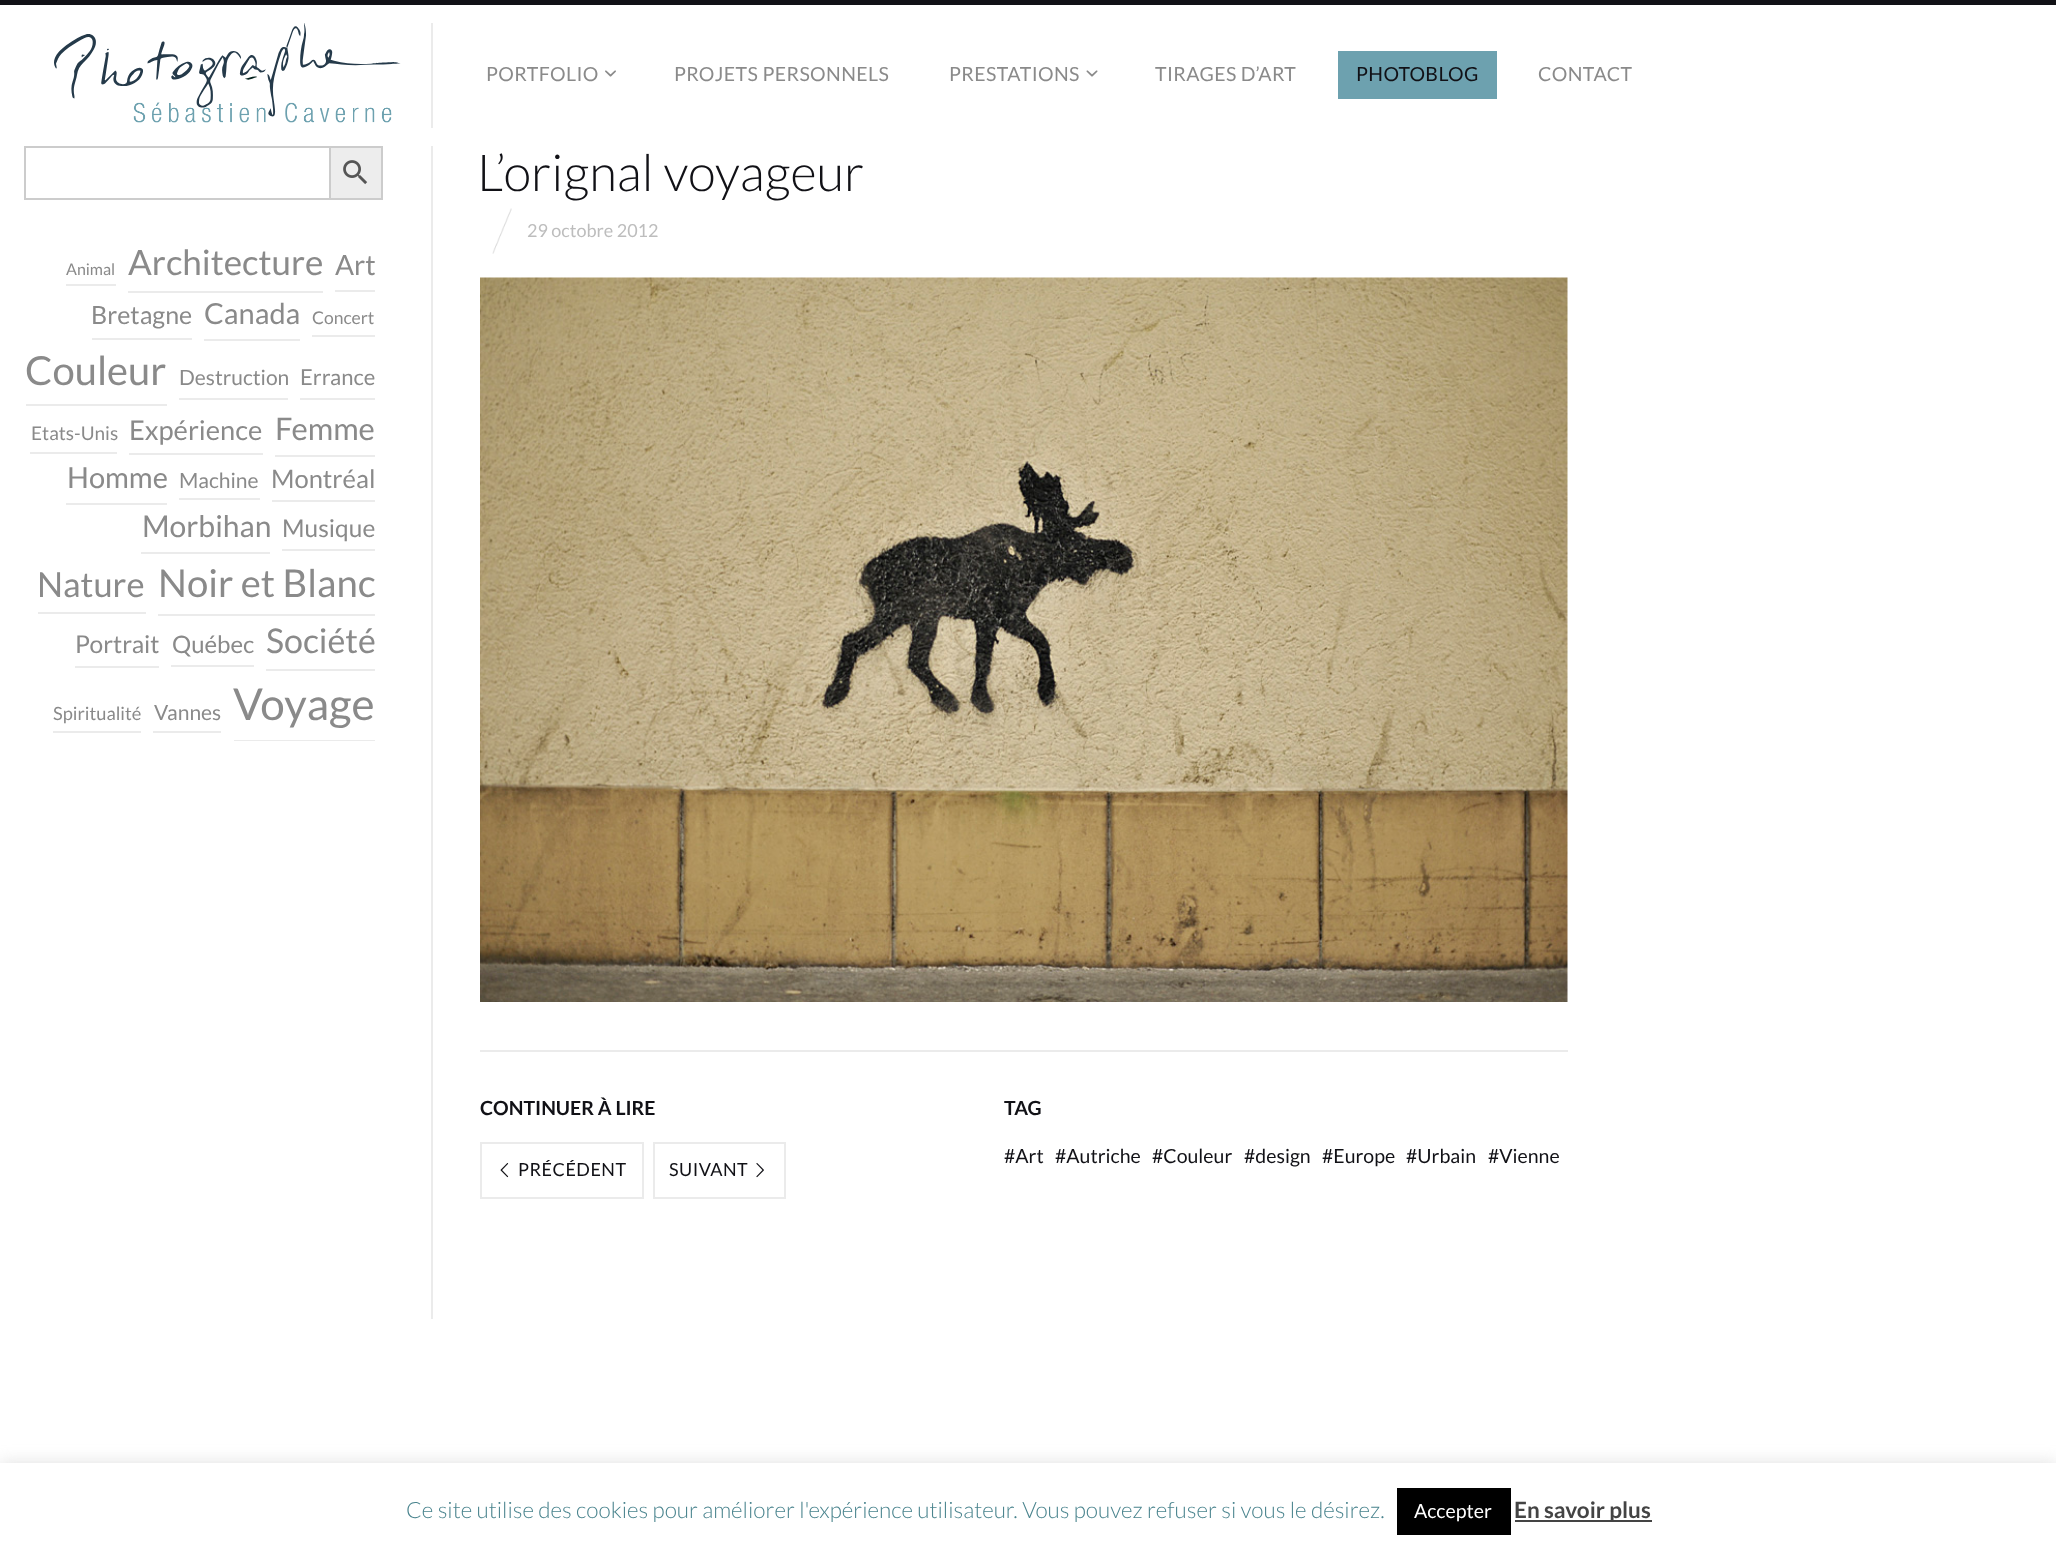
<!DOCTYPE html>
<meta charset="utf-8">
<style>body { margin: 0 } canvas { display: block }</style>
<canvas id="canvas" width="2056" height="1552"></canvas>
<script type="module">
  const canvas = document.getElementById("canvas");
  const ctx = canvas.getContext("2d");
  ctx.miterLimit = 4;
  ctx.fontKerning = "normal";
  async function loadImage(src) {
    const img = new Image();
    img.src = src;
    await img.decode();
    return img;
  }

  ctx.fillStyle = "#ffffff";
  ctx.fillRect(0, 0, 2056, 1552);
  ctx.fillStyle = "#111116";
  ctx.fillRect(0, 0, 2056, 5);
  ctx.fillStyle = "#ebebeb";
  ctx.fillRect(431, 23, 2, 105);
  ctx.drawImage(await loadImage("img1.png"), 54, 23, 347, 100);
  ctx.letterSpacing = "0.4px";
  ctx.font = "19.5px Lato";
  ctx.fillStyle = "#8a8a8a";
  ctx.fillText("PORTFOLIO", 486, 81);
  ctx.drawImage(await loadImage("img2.png"), 605, 70, 11, 7);
  ctx.fillText("PROJETS PERSONNELS", 674, 81);
  ctx.fillText("PRESTATIONS", 949, 81);
  ctx.drawImage(await loadImage("img3.png"), 1086, 70, 12, 7);
  ctx.fillText("TIRAGES D’ART", 1155, 81);
  ctx.fillStyle = "#6da1af";
  ctx.fillRect(1338, 51, 159, 48);
  ctx.fillStyle = "#111116";
  ctx.fillText("PHOTOBLOG", 1356, 81);
  ctx.fillStyle = "#8a8a8a";
  ctx.fillText("CONTACT", 1538, 81);
  ctx.fillStyle = "#ebebeb";
  ctx.fillRect(431, 146, 2, 1173);
  ctx.fillStyle = "#cccccc";
  ctx.fillRect(24, 146, 305, 2);
  ctx.fillRect(24, 198, 305, 2);
  ctx.fillRect(24, 146, 2, 54);
  ctx.fillStyle = "#ededed";
  ctx.beginPath();
  ctx.rect(330, 147, 52, 52);
  ctx.fill();
  ctx.strokeStyle = "#cccccc";
  ctx.lineWidth = 2;
  ctx.stroke();
  ctx.drawImage(await loadImage("img4.png"), 343, 160, 25, 25);
  ctx.fillStyle = "#ebebeb";
  ctx.fillRect(66, 284, 50, 2);
  ctx.letterSpacing = "0px";
  ctx.font = "16px Lato";
  ctx.fillStyle = "#8a8a8a";
  ctx.fillText("Animal", 66, 275);
  ctx.fillStyle = "#ebebeb";
  ctx.fillRect(128, 291, 195, 2);
  ctx.font = "35px Lato";
  ctx.fillStyle = "#8a8a8a";
  ctx.fillText("Architecture", 128, 275);
  ctx.fillStyle = "#ebebeb";
  ctx.fillRect(335, 290, 40, 2);
  ctx.font = "28px Lato";
  ctx.fillStyle = "#8a8a8a";
  ctx.fillText("Art", 335, 275);
  ctx.fillStyle = "#ebebeb";
  ctx.fillRect(92, 338, 100, 2);
  ctx.font = "25px Lato";
  ctx.fillStyle = "#8a8a8a";
  ctx.fillText("Bretagne", 91, 324);
  ctx.fillStyle = "#ebebeb";
  ctx.fillRect(204, 339, 96, 2);
  ctx.font = "29px Lato";
  ctx.fillStyle = "#8a8a8a";
  ctx.fillText("Canada", 204, 324);
  ctx.fillStyle = "#ebebeb";
  ctx.fillRect(312, 335, 63, 2);
  ctx.font = "17.5px Lato";
  ctx.fillStyle = "#8a8a8a";
  ctx.fillText("Concert", 312, 324);
  ctx.fillStyle = "#ebebeb";
  ctx.fillRect(26, 404, 141, 2);
  ctx.font = "40px Lato";
  ctx.fillStyle = "#8a8a8a";
  ctx.fillText("Couleur", 25, 385);
  ctx.fillStyle = "#ebebeb";
  ctx.fillRect(179, 398, 109, 2);
  ctx.font = "21px Lato";
  ctx.fillStyle = "#8a8a8a";
  ctx.fillText("Destruction", 179, 385);
  ctx.fillStyle = "#ebebeb";
  ctx.fillRect(300, 398, 75, 2);
  ctx.font = "22px Lato";
  ctx.fillStyle = "#8a8a8a";
  ctx.fillText("Errance", 300, 385);
  ctx.fillStyle = "#ebebeb";
  ctx.fillRect(30, 452, 87, 2);
  ctx.font = "19px Lato";
  ctx.fillStyle = "#8a8a8a";
  ctx.fillText("Etats-Unis", 31, 440);
  ctx.fillStyle = "#ebebeb";
  ctx.fillRect(129, 453, 134, 2);
  ctx.font = "27.25px Lato";
  ctx.fillStyle = "#8a8a8a";
  ctx.fillText("Expérience", 129, 440);
  ctx.fillStyle = "#ebebeb";
  ctx.fillRect(275, 455, 100, 2);
  ctx.font = "31px Lato";
  ctx.fillStyle = "#8a8a8a";
  ctx.fillText("Femme", 275, 440);
  ctx.fillStyle = "#ebebeb";
  ctx.fillRect(66, 503, 101, 2);
  ctx.font = "29px Lato";
  ctx.fillStyle = "#8a8a8a";
  ctx.fillText("Homme", 67, 488);
  ctx.fillStyle = "#ebebeb";
  ctx.fillRect(179, 498, 81, 2);
  ctx.font = "21px Lato";
  ctx.fillStyle = "#8a8a8a";
  ctx.fillText("Machine", 179, 488);
  ctx.fillStyle = "#ebebeb";
  ctx.fillRect(272, 500, 103, 2);
  ctx.font = "25.5px Lato";
  ctx.fillStyle = "#8a8a8a";
  ctx.fillText("Montréal", 271, 488);
  ctx.fillStyle = "#ebebeb";
  ctx.fillRect(141, 552, 129, 2);
  ctx.font = "30px Lato";
  ctx.fillStyle = "#8a8a8a";
  ctx.fillText("Morbihan", 142, 537);
  ctx.fillStyle = "#ebebeb";
  ctx.fillRect(282, 549, 93, 2);
  ctx.font = "24.5px Lato";
  ctx.fillStyle = "#8a8a8a";
  ctx.fillText("Musique", 282, 537);
  ctx.fillStyle = "#ebebeb";
  ctx.fillRect(38, 612, 108, 2);
  ctx.font = "34.5px Lato";
  ctx.fillStyle = "#8a8a8a";
  ctx.fillText("Nature", 37, 597);
  ctx.fillStyle = "#ebebeb";
  ctx.fillRect(158, 614, 217, 2);
  ctx.font = "38.25px Lato";
  ctx.fillStyle = "#8a8a8a";
  ctx.fillText("Noir et Blanc", 158, 597);
  ctx.fillStyle = "#ebebeb";
  ctx.fillRect(75, 666, 84, 2);
  ctx.font = "24.5px Lato";
  ctx.fillStyle = "#8a8a8a";
  ctx.fillText("Portrait", 75, 653);
  ctx.fillStyle = "#ebebeb";
  ctx.fillRect(171, 665, 83, 2);
  ctx.font = "24px Lato";
  ctx.fillStyle = "#8a8a8a";
  ctx.fillText("Québec", 172, 653);
  ctx.fillStyle = "#ebebeb";
  ctx.fillRect(266, 669, 109, 2);
  ctx.font = "34px Lato";
  ctx.fillStyle = "#8a8a8a";
  ctx.fillText("Société", 266, 653);
  ctx.fillStyle = "#ebebeb";
  ctx.fillRect(53, 731, 88, 2);
  ctx.font = "18.25px Lato";
  ctx.fillStyle = "#8a8a8a";
  ctx.fillText("Spiritualité", 53, 720);
  ctx.fillStyle = "#ebebeb";
  ctx.fillRect(153, 731, 68, 2);
  ctx.font = "21px Lato";
  ctx.fillStyle = "#8a8a8a";
  ctx.fillText("Vannes", 154, 720);
  ctx.fillStyle = "#ebebeb";
  ctx.fillRect(234, 740, 141, 1);
  ctx.font = "44px Lato";
  ctx.fillStyle = "#8a8a8a";
  ctx.fillText("Voyage", 233, 720);
  ctx.font = "300 51px Lato";
  ctx.fillStyle = "#111116";
  ctx.fillText("L’orignal voyageur", 477, 191);
  ctx.drawImage(await loadImage("img5.png"), 492, 208, 20, 46);
  ctx.font = "18px Lato";
  ctx.fillStyle = "#bdbdbd";
  ctx.fillText("29 octobre 2012", 527, 237);
  ctx.drawImage(await loadImage("img6.png"), 480, 277, 1088, 725);
  ctx.fillStyle = "#ebebeb";
  ctx.fillRect(480, 1050, 1088, 2);
  ctx.font = "bold 19.5px Lato";
  ctx.fillStyle = "#111116";
  ctx.fillText("CONTINUER À LIRE", 480, 1115);
  ctx.strokeStyle = "#ebebeb";
  ctx.strokeRect(481, 1143, 162, 55);
  ctx.drawImage(await loadImage("img7.png"), 500, 1163, 9, 15);
  ctx.letterSpacing = "0.5px";
  ctx.font = "18px Lato";
  ctx.fillText("PRÉCÉDENT", 518, 1176);
  ctx.strokeRect(654, 1143, 131, 55);
  ctx.fillText("SUIVANT", 669, 1176);
  ctx.drawImage(await loadImage("img8.png"), 756, 1163, 8, 15);
  ctx.letterSpacing = "0px";
  ctx.font = "bold 19.5px Lato";
  ctx.fillText("TAG", 1004, 1115);
  ctx.font = "19.5px Lato";
  ctx.fillText("#Art", 1004, 1163);
  ctx.fillText("#Autriche", 1055, 1163);
  ctx.fillText("#Couleur", 1152, 1163);
  ctx.fillText("#design", 1244, 1163);
  ctx.fillText("#Europe", 1322, 1163);
  ctx.fillText("#Urbain", 1406, 1163);
  ctx.fillText("#Vienne", 1488, 1163);
  ctx.fillStyle = "rgba(172, 171, 171, 0.3)";
  ctx.filter = "blur(7.5px)";
  ctx.beginPath();
  ctx.rect(0, 1461, 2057, 90);
  ctx.fill();
  ctx.filter = "none";
  ctx.fillStyle = "#ffffff";
  ctx.fillRect(0, 1463, 2056, 89);
  ctx.font = "300 22.5px Lato";
  ctx.fillStyle = "#4a848e";
  ctx.fillText("Ce site utilise des cookies pour améliorer l'expérience utilisateur. Vous pouvez refuser si vous le désirez.", 406, 1518);
  ctx.fillStyle = "#000000";
  ctx.fillRect(1397, 1488, 114, 47);
  ctx.font = "19.5px Lato";
  ctx.fillStyle = "#ffffff";
  ctx.fillText("Accepter", 1414, 1518);
  ctx.fillStyle = "#444444";
  ctx.fillRect(1515, 1520, 137, 2);
  ctx.font = "bold 22.5px Lato";
  ctx.fillText("En savoir plus", 1514, 1518);
</script>
